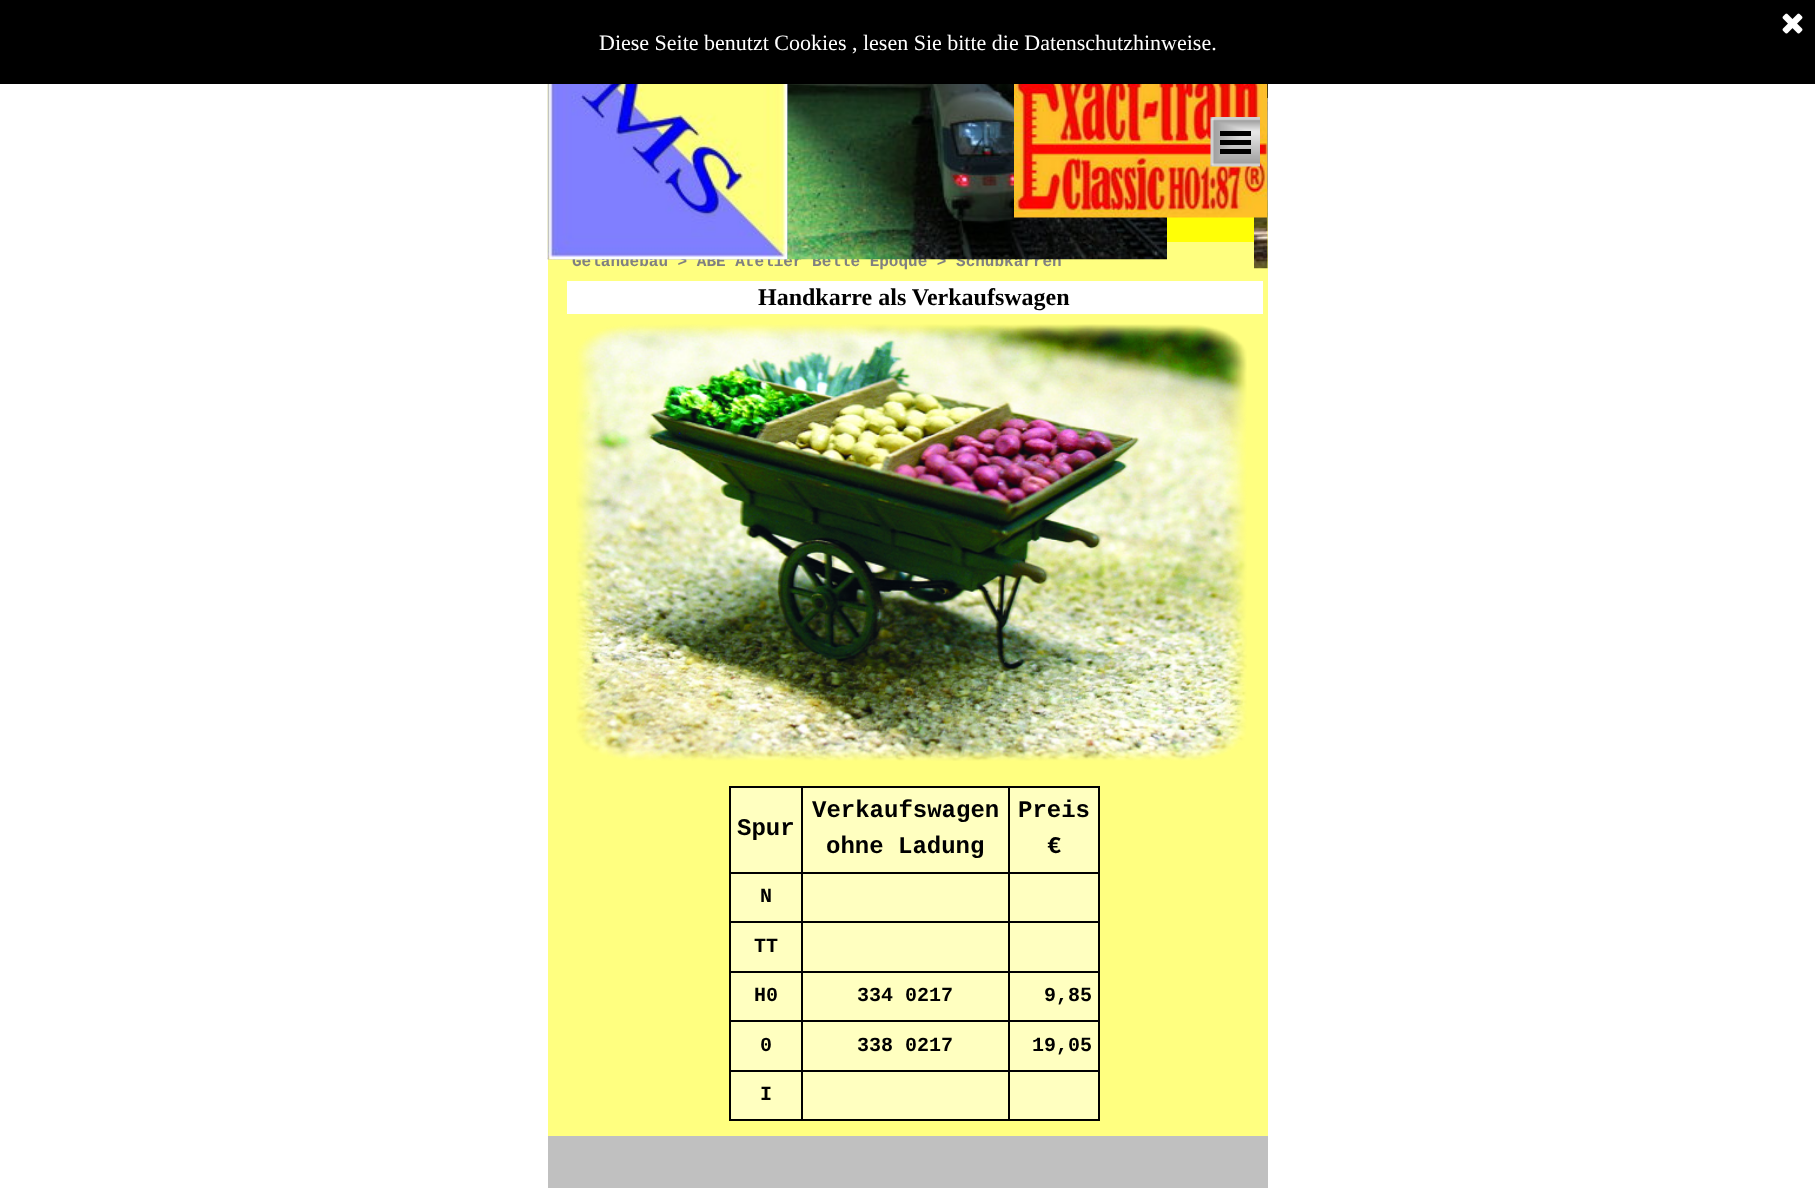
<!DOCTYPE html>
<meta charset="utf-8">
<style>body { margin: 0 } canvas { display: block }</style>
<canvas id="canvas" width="1815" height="1192"></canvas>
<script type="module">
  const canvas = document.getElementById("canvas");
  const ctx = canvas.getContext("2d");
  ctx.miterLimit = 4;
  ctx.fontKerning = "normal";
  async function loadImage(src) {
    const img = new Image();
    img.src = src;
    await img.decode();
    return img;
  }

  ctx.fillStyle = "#ffffff";
  ctx.fillRect(0, 0, 1815, 1192);
  ctx.strokeStyle = "#000000";
  ctx.lineWidth = 2;
  ctx.strokeRect(1210, 70, 57, 27);
  ctx.fillStyle = "#000000";
  ctx.fillRect(0, 0, 1815, 84);
  ctx.drawImage(await loadImage("img1.png"), 1782, 13, 21, 21);
  ctx.font = "22px Liberation Serif";
  ctx.fillStyle = "#ffffff";
  ctx.fillText("Diese Seite benutzt Cookies , lesen Sie bitte die Datenschutzhinweise.", 599, 50);
  ctx.fillStyle = "#ffff80";
  ctx.fillRect(548, 200, 720, 936);
  ctx.font = "bold 16px Liberation Mono";
  ctx.fillStyle = "#808080";
  ctx.fillText("Geländebau > ABE Atelier Belle Époque > Schubkarren", 572, 266);
  ctx.drawImage(await loadImage("img4.png"), 786, 84, 381, 176);
  ctx.drawImage(await loadImage("img2.png"), 547, 84, 241, 176);
  ctx.drawImage(await loadImage("img3.png"), 547, 84, 241, 176);
  ctx.drawImage(await loadImage("img7.png"), 1267, 100, 1, 4);
  ctx.drawImage(await loadImage("img6.png"), 1254, 84, 14, 185);
  ctx.fillStyle = "#ffff06";
  ctx.fillRect(1167, 217, 87, 25);
  ctx.drawImage(await loadImage("img5.png"), 1014, 84, 254, 134);
  ctx.drawImage(await loadImage("img8.png"), 1210, 117, 50, 50);
  ctx.fillStyle = "#000000";
  ctx.fillRect(1220, 131, 31, 5);
  ctx.fillRect(1220, 140, 31, 5);
  ctx.fillRect(1220, 149, 31, 5);
  ctx.fillStyle = "#ffffff";
  ctx.fillRect(567, 281, 696, 33);
  ctx.font = "bold 24px Liberation Serif";
  ctx.fillStyle = "#000000";
  ctx.fillText("Handkarre als Verkaufswagen", 758, 305);
  ctx.drawImage(await loadImage("img9.png"), 576, 324, 671, 437);
  ctx.fillStyle = "#ffffc0";
  ctx.fillRect(731, 788, 70, 84);
  ctx.fillStyle = "#000000";
  ctx.fillRect(1008, 786, 92, 2);
  ctx.fillRect(1008, 872, 92, 2);
  ctx.fillRect(1008, 921, 92, 2);
  ctx.fillRect(1008, 971, 92, 2);
  ctx.fillRect(1008, 1020, 92, 2);
  ctx.fillRect(1008, 1070, 92, 2);
  ctx.fillRect(1098, 1070, 2, 51);
  ctx.fillRect(1008, 1119, 92, 2);
  ctx.fillRect(1008, 1070, 2, 51);
  ctx.fillRect(801, 1070, 209, 2);
  ctx.fillRect(1008, 1020, 2, 51);
  ctx.fillRect(801, 1020, 209, 2);
  ctx.fillRect(1008, 971, 2, 51);
  ctx.fillRect(801, 971, 209, 2);
  ctx.fillRect(1008, 921, 2, 51);
  ctx.fillRect(801, 921, 209, 2);
  ctx.fillRect(1008, 872, 2, 51);
  ctx.fillRect(801, 872, 209, 2);
  ctx.fillRect(1008, 786, 2, 87);
  ctx.fillRect(801, 786, 209, 2);
  ctx.fillRect(801, 1119, 209, 2);
  ctx.fillRect(801, 1070, 2, 51);
  ctx.fillRect(729, 1070, 74, 2);
  ctx.fillRect(801, 1020, 2, 51);
  ctx.fillRect(729, 1020, 74, 2);
  ctx.fillRect(801, 971, 2, 51);
  ctx.fillRect(729, 971, 74, 2);
  ctx.fillRect(801, 921, 2, 51);
  ctx.fillRect(729, 921, 74, 2);
  ctx.fillRect(801, 872, 2, 51);
  ctx.fillRect(729, 872, 74, 2);
  ctx.fillRect(801, 786, 2, 87);
  ctx.fillRect(729, 786, 74, 2);
  ctx.fillRect(729, 1119, 74, 2);
  ctx.fillRect(729, 1070, 2, 51);
  ctx.fillRect(729, 1020, 2, 51);
  ctx.fillRect(729, 971, 2, 51);
  ctx.fillRect(729, 921, 2, 51);
  ctx.fillRect(729, 872, 2, 51);
  ctx.fillRect(729, 786, 2, 87);
  ctx.font = "bold 24px Liberation Mono";
  ctx.fillText("Spur", 737, 835);
  ctx.fillStyle = "#ffffc0";
  ctx.fillRect(803, 788, 205, 84);
  ctx.fillStyle = "#000000";
  ctx.fillText("Verkaufswagen", 812, 817);
  ctx.fillText("ohne Ladung", 826, 853);
  ctx.fillStyle = "#ffffc0";
  ctx.fillRect(1010, 788, 88, 84);
  ctx.fillStyle = "#000000";
  ctx.fillRect(1098, 1020, 2, 51);
  ctx.fillRect(1098, 971, 2, 51);
  ctx.fillRect(1098, 921, 2, 51);
  ctx.fillRect(1098, 872, 2, 51);
  ctx.fillRect(1098, 786, 2, 87);
  ctx.fillText("Preis", 1018, 817);
  ctx.fillText("€", 1047, 853);
  ctx.fillStyle = "#ffffc0";
  ctx.fillRect(731, 874, 70, 47);
  ctx.font = "bold 20px Liberation Mono";
  ctx.fillStyle = "#000000";
  ctx.fillText("N", 760, 902);
  ctx.fillStyle = "#ffffc0";
  ctx.fillRect(803, 874, 205, 47);
  ctx.fillRect(1010, 874, 88, 47);
  ctx.fillRect(731, 923, 70, 48);
  ctx.fillStyle = "#000000";
  ctx.fillText("TT", 754, 952);
  ctx.fillStyle = "#ffffc0";
  ctx.fillRect(803, 923, 205, 48);
  ctx.fillRect(1010, 923, 88, 48);
  ctx.fillRect(731, 973, 70, 47);
  ctx.fillStyle = "#000000";
  ctx.fillText("H0", 754, 1001);
  ctx.fillStyle = "#ffffc0";
  ctx.fillRect(803, 973, 205, 47);
  ctx.fillStyle = "#000000";
  ctx.fillText("334 0217", 857, 1001);
  ctx.fillStyle = "#ffffc0";
  ctx.fillRect(1010, 973, 88, 47);
  ctx.fillStyle = "#000000";
  ctx.fillText("9,85", 1044, 1001);
  ctx.fillStyle = "#ffffc0";
  ctx.fillRect(731, 1022, 70, 48);
  ctx.fillStyle = "#000000";
  ctx.fillText("0", 760, 1051);
  ctx.fillStyle = "#ffffc0";
  ctx.fillRect(803, 1022, 205, 48);
  ctx.fillStyle = "#000000";
  ctx.fillText("338 0217", 857, 1051);
  ctx.fillStyle = "#ffffc0";
  ctx.fillRect(1010, 1022, 88, 48);
  ctx.fillStyle = "#000000";
  ctx.fillText("19,05", 1032, 1051);
  ctx.fillStyle = "#ffffc0";
  ctx.fillRect(731, 1072, 70, 47);
  ctx.fillStyle = "#000000";
  ctx.fillText("I", 760, 1100);
  ctx.fillStyle = "#ffffc0";
  ctx.fillRect(803, 1072, 205, 47);
  ctx.fillRect(1010, 1072, 88, 47);
  ctx.fillStyle = "#c0c0c0";
  ctx.fillRect(548, 1136, 720, 52);
</script>
